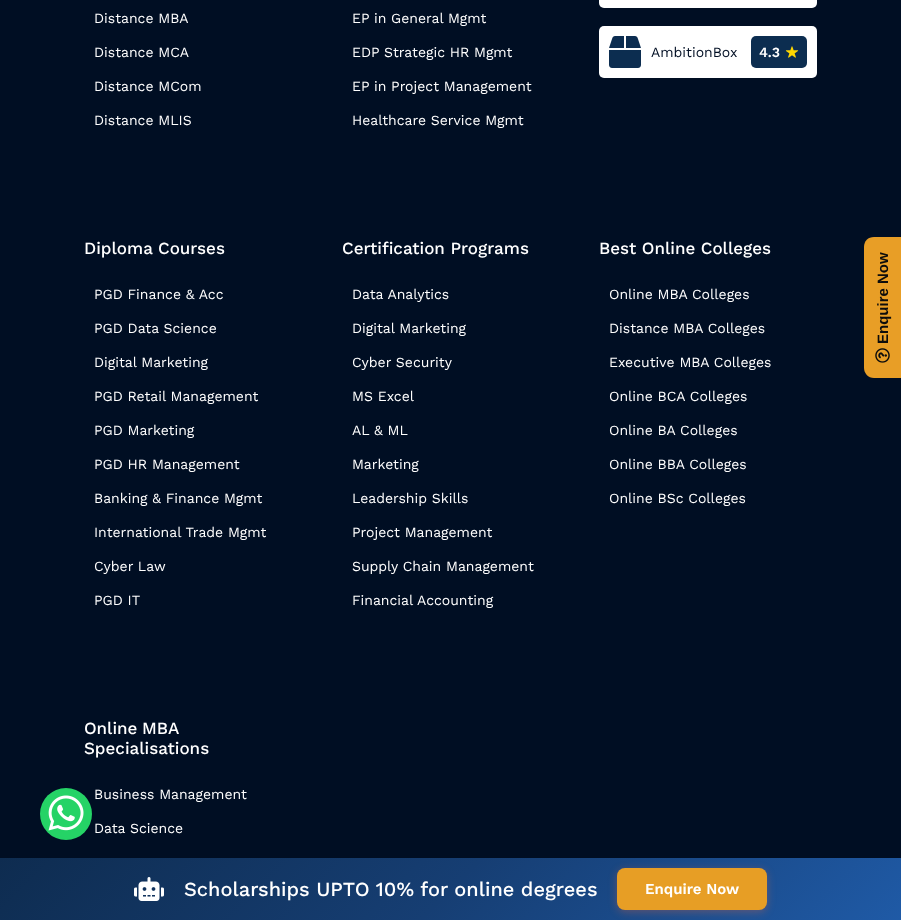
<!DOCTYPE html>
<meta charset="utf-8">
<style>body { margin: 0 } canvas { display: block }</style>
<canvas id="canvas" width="901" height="920"></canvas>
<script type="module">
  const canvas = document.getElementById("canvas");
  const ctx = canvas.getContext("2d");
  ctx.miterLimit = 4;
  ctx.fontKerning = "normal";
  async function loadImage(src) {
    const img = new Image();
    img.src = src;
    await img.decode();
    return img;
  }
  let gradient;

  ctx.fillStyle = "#000e23";
  ctx.fillRect(0, 0, 901, 920);
  ctx.font = "14px Work Sans";
  ctx.fillStyle = "#ffffff";
  ctx.fillText("Distance MBA", 94, 23);
  ctx.fillText("Distance MCA", 94, 57);
  ctx.fillText("Distance MCom", 94, 91);
  ctx.fillText("Distance MLIS", 94, 125);
  ctx.fillText("EP in General Mgmt", 352, 23);
  ctx.fillText("EDP Strategic HR Mgmt", 352, 57);
  ctx.fillText("EP in Project Management", 352, 91);
  ctx.fillText("Healthcare Service Mgmt", 352, 125);
  ctx.beginPath();
  ctx.roundRect(599, -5, 218, 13, 5);
  ctx.fill();
  ctx.beginPath();
  ctx.roundRect(599, 26, 218, 52, 5);
  ctx.fill();
  ctx.drawImage(await loadImage("img1.png"), 609, 36, 32, 32);
  ctx.fillStyle = "#000e23";
  ctx.fillText("AmbitionBox", 651, 57);
  ctx.fillStyle = "#0c2d50";
  ctx.beginPath();
  ctx.roundRect(751, 36, 56, 32, 5);
  ctx.fill();
  ctx.font = "600 14px Work Sans";
  ctx.fillStyle = "#ffffff";
  ctx.fillText("4.3", 759, 57);
  ctx.drawImage(await loadImage("img2.png"), 785, 46, 14, 12);
  ctx.font = "500 17px Work Sans";
  ctx.fillText("Diploma Courses", 84, 254);
  ctx.font = "14px Work Sans";
  ctx.fillText("PGD Finance & Acc", 94, 299);
  ctx.fillText("PGD Data Science", 94, 333);
  ctx.fillText("Digital Marketing", 94, 367);
  ctx.fillText("PGD Retail Management", 94, 401);
  ctx.fillText("PGD Marketing", 94, 435);
  ctx.fillText("PGD HR Management", 94, 469);
  ctx.fillText("Banking & Finance Mgmt", 94, 503);
  ctx.fillText("International Trade Mgmt", 94, 537);
  ctx.fillText("Cyber Law", 94, 571);
  ctx.fillText("PGD IT", 94, 605);
  ctx.font = "500 17px Work Sans";
  ctx.fillText("Certification Programs", 342, 254);
  ctx.font = "14px Work Sans";
  ctx.fillText("Data Analytics", 352, 299);
  ctx.fillText("Digital Marketing", 352, 333);
  ctx.fillText("Cyber Security", 352, 367);
  ctx.fillText("MS Excel", 352, 401);
  ctx.fillText("AL & ML", 352, 435);
  ctx.fillText("Marketing", 352, 469);
  ctx.fillText("Leadership Skills", 352, 503);
  ctx.fillText("Project Management", 352, 537);
  ctx.fillText("Supply Chain Management", 352, 571);
  ctx.fillText("Financial Accounting", 352, 605);
  ctx.font = "500 17px Work Sans";
  ctx.fillText("Best Online Colleges", 599, 254);
  ctx.font = "14px Work Sans";
  ctx.fillText("Online MBA Colleges", 609, 299);
  ctx.fillText("Distance MBA Colleges", 609, 333);
  ctx.fillText("Executive MBA Colleges", 609, 367);
  ctx.fillText("Online BCA Colleges", 609, 401);
  ctx.fillText("Online BA Colleges", 609, 435);
  ctx.fillText("Online BBA Colleges", 609, 469);
  ctx.fillText("Online BSc Colleges", 609, 503);
  ctx.wordSpacing = "-1px";
  ctx.font = "500 17px Work Sans";
  ctx.fillText("Online MBA", 84, 734);
  ctx.wordSpacing = "0px";
  ctx.fillText("Specialisations", 84, 754);
  ctx.font = "14px Work Sans";
  ctx.fillText("Business Management", 94, 799);
  ctx.fillText("Data Science", 94, 833);
  ctx.fillStyle = "#e89e26";
  ctx.beginPath();
  ctx.moveTo(864, 368);
  ctx.lineTo(864, 247);
  ctx.bezierCurveTo(864, 241, 868, 237, 874, 237);
  ctx.lineTo(901, 237);
  ctx.lineTo(901, 378);
  ctx.lineTo(874, 378);
  ctx.bezierCurveTo(868, 378, 864, 373, 864, 368);
  ctx.closePath();
  ctx.fill();
  ctx.font = "bold 15px Liberation Sans";
  ctx.fillStyle = "#0c0c0c";
  ctx.save();
  ctx.translate(888, 344);
  ctx.rotate(-90 * Math.PI / 180);
  ctx.fillText("Enquire Now", 0, 0);
  ctx.restore();
  ctx.drawImage(await loadImage("img3.png"), 875, 348, 15, 15);
  ctx.fillStyle = "#25d366";
  ctx.beginPath();
  ctx.arc(66, 814, 26, 0, Math.PI * 2);
  ctx.fill();
  ctx.drawImage(await loadImage("img4.png"), 48, 795, 36, 36);
  gradient = ctx.createLinearGradient(210, 648, 691, 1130);
  gradient.addColorStop(0, "#0e2c50");
  gradient.addColorStop(0.5, "#163e73");
  gradient.addColorStop(1, "#1f5aa6");
  ctx.fillStyle = gradient;
  ctx.fillRect(0, 858, 901, 62);
  ctx.drawImage(await loadImage("img5.png"), 134, 877, 30, 24);
  ctx.font = "500 20px Work Sans";
  ctx.fillStyle = "#ffffff";
  ctx.fillText("Scholarships UPTO 10% for online degrees", 184, 896);
  ctx.fillStyle = "rgba(255, 107, 53, 0.3)";
  ctx.filter = "blur(4px)";
  ctx.beginPath();
  ctx.roundRect(617, 870, 150, 42, 8);
  ctx.fill();
  ctx.filter = "none";
  ctx.fillStyle = "#e79e25";
  ctx.beginPath();
  ctx.roundRect(617, 868, 150, 42, 8);
  ctx.fill();
  ctx.font = "600 15px Work Sans";
  ctx.fillStyle = "#ffffff";
  ctx.fillText("Enquire Now", 645, 894);
</script>
